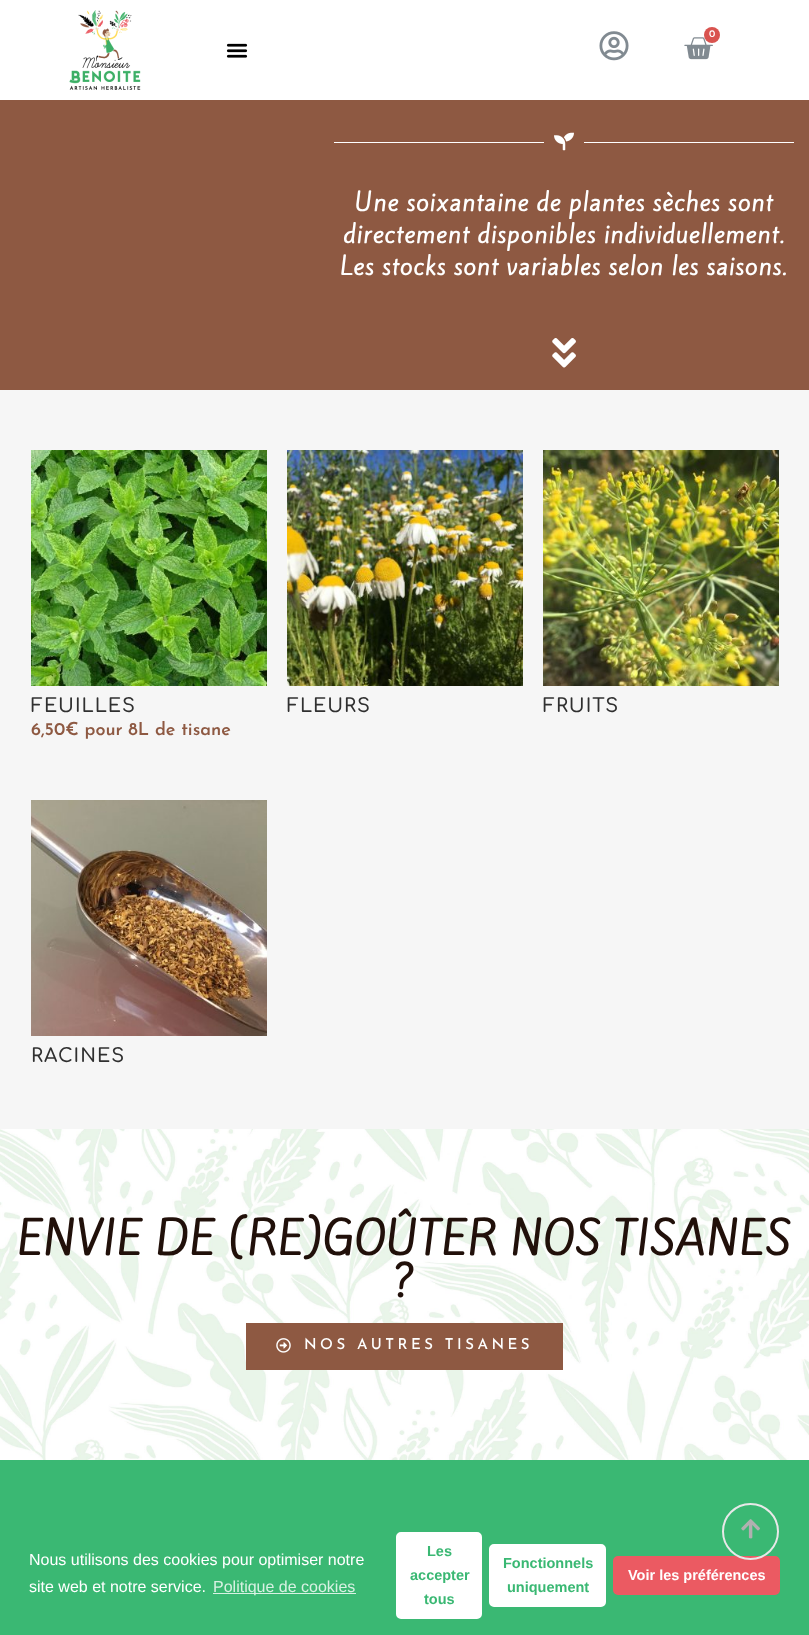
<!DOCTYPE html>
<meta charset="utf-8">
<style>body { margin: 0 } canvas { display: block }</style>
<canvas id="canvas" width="809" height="1635"></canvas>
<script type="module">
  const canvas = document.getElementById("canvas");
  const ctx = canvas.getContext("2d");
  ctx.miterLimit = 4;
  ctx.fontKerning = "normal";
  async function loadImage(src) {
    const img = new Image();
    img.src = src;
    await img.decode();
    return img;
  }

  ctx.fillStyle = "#f6f6f6";
  ctx.fillRect(0, 0, 809, 1635);
  ctx.fillStyle = "#ffffff";
  ctx.fillRect(0, 0, 809, 100);
  ctx.drawImage(await loadImage("img1.png"), 69, 10, 72, 80);
  ctx.drawImage(await loadImage("img2.png"), 599, 31, 30, 30);
  ctx.drawImage(await loadImage("img3.png"), 684, 37, 29, 23);
  ctx.fillStyle = "#d9534f";
  ctx.beginPath();
  ctx.arc(712, 35, 8, 0, Math.PI * 2);
  ctx.fill();
  ctx.font = "600 10px Josefin Sans";
  ctx.fillStyle = "#ffffff";
  ctx.fillText("0", 709, 37);
  ctx.drawImage(await loadImage("img4.png"), 226, 43, 22, 15);
  ctx.fillStyle = "#8e5942";
  ctx.fillRect(0, 100, 809, 290);
  ctx.fillStyle = "#ffffff";
  ctx.fillRect(334, 142, 210, 1);
  ctx.drawImage(await loadImage("img5.png"), 554, 132, 20, 19);
  ctx.fillRect(584, 142, 210, 1);
  ctx.letterSpacing = "1px";
  ctx.font = "bold 23px Kite One";
  ctx.fillText("Une soixantaine de plantes sèches sont", 355, 211);
  ctx.fillText("directement disponibles individuellement.", 343, 243);
  ctx.fillText("Les stocks sont variables selon les saisons.", 340, 275);
  ctx.drawImage(await loadImage("img6.png"), 552, 338, 24, 30);
  ctx.drawImage(await loadImage("img7.png"), 31, 450, 236, 236);
  ctx.font = "600 19px Comfortaa";
  ctx.fillStyle = "#303030";
  ctx.fillText("FEUILLES", 31, 712);
  ctx.letterSpacing = "0px";
  ctx.font = "600 18px Josefin Sans";
  ctx.fillStyle = "#8e5942";
  ctx.fillText("6,50€ pour 8L de tisane", 31, 735);
  ctx.drawImage(await loadImage("img8.png"), 287, 450, 236, 236);
  ctx.letterSpacing = "1px";
  ctx.font = "600 19px Comfortaa";
  ctx.fillStyle = "#303030";
  ctx.fillText("FLEURS", 287, 712);
  ctx.drawImage(await loadImage("img9.png"), 543, 450, 236, 236);
  ctx.fillText("FRUITS", 543, 712);
  ctx.drawImage(await loadImage("img10.png"), 31, 800, 236, 236);
  ctx.fillText("RACINES", 31, 1062);
  ctx.drawImage(await loadImage("img11.png"), 0, 1129, 809, 331);
  ctx.font = "bold 42px Kite One";
  ctx.fillStyle = "#21100a";
  ctx.fillText("ENVIE DE (RE)GOÛTER NOS TISANES", 17, 1255);
  ctx.fillText("?", 393, 1297);
  ctx.fillStyle = "#8e5942";
  ctx.fillRect(246, 1323, 317, 47);
  ctx.drawImage(await loadImage("img12.png"), 276, 1338, 15, 15);
  ctx.letterSpacing = "3.5px";
  ctx.font = "500 15px Josefin Sans";
  ctx.fillStyle = "#ffffff";
  ctx.fillText("NOS AUTRES TISANES", 304, 1349);
  ctx.fillStyle = "#3ab873";
  ctx.fillRect(0, 1460, 809, 175);
  ctx.fillStyle = "#eb5a62";
  ctx.beginPath();
  ctx.roundRect(614, 1557, 165, 37, 4);
  ctx.fill();
  ctx.strokeStyle = "#eb5a62";
  ctx.lineWidth = 2;
  ctx.stroke();
  ctx.beginPath();
  ctx.arc(750.5, 1531.5, 27.5, 0, Math.PI * 2);
  ctx.strokeStyle = "#e8e8e8";
  ctx.stroke();
  ctx.drawImage(await loadImage("img13.png"), 741, 1519, 19, 20);
  ctx.letterSpacing = "0px";
  ctx.font = "16px Liberation Sans";
  ctx.fillStyle = "#ffffff";
  ctx.fillText("Nous utilisons des cookies pour optimiser notre", 29, 1565);
  ctx.fillText("site web et notre service.", 29, 1592);
  ctx.fillStyle = "#d8f1e3";
  ctx.fillRect(213, 1593, 143, 1);
  ctx.fillText("Politique de cookies", 213, 1592);
  ctx.fillStyle = "#ffffff";
  ctx.beginPath();
  ctx.roundRect(397, 1533, 84, 85, 4);
  ctx.fill();
  ctx.strokeStyle = "#ffffff";
  ctx.stroke();
  ctx.font = "bold 14.5px Liberation Sans";
  ctx.fillStyle = "#3ab873";
  ctx.fillText("Les", 427, 1556);
  ctx.fillText("accepter", 410, 1580);
  ctx.fillText("tous", 424, 1604);
  ctx.fillStyle = "#ffffff";
  ctx.beginPath();
  ctx.roundRect(490, 1545, 115, 61, 4);
  ctx.fill();
  ctx.stroke();
  ctx.fillStyle = "#3ab873";
  ctx.fillText("Fonctionnels", 503, 1568);
  ctx.fillText("uniquement", 507, 1592);
  ctx.fillStyle = "#ffffff";
  ctx.fillText("Voir les préférences", 628, 1580);
</script>
